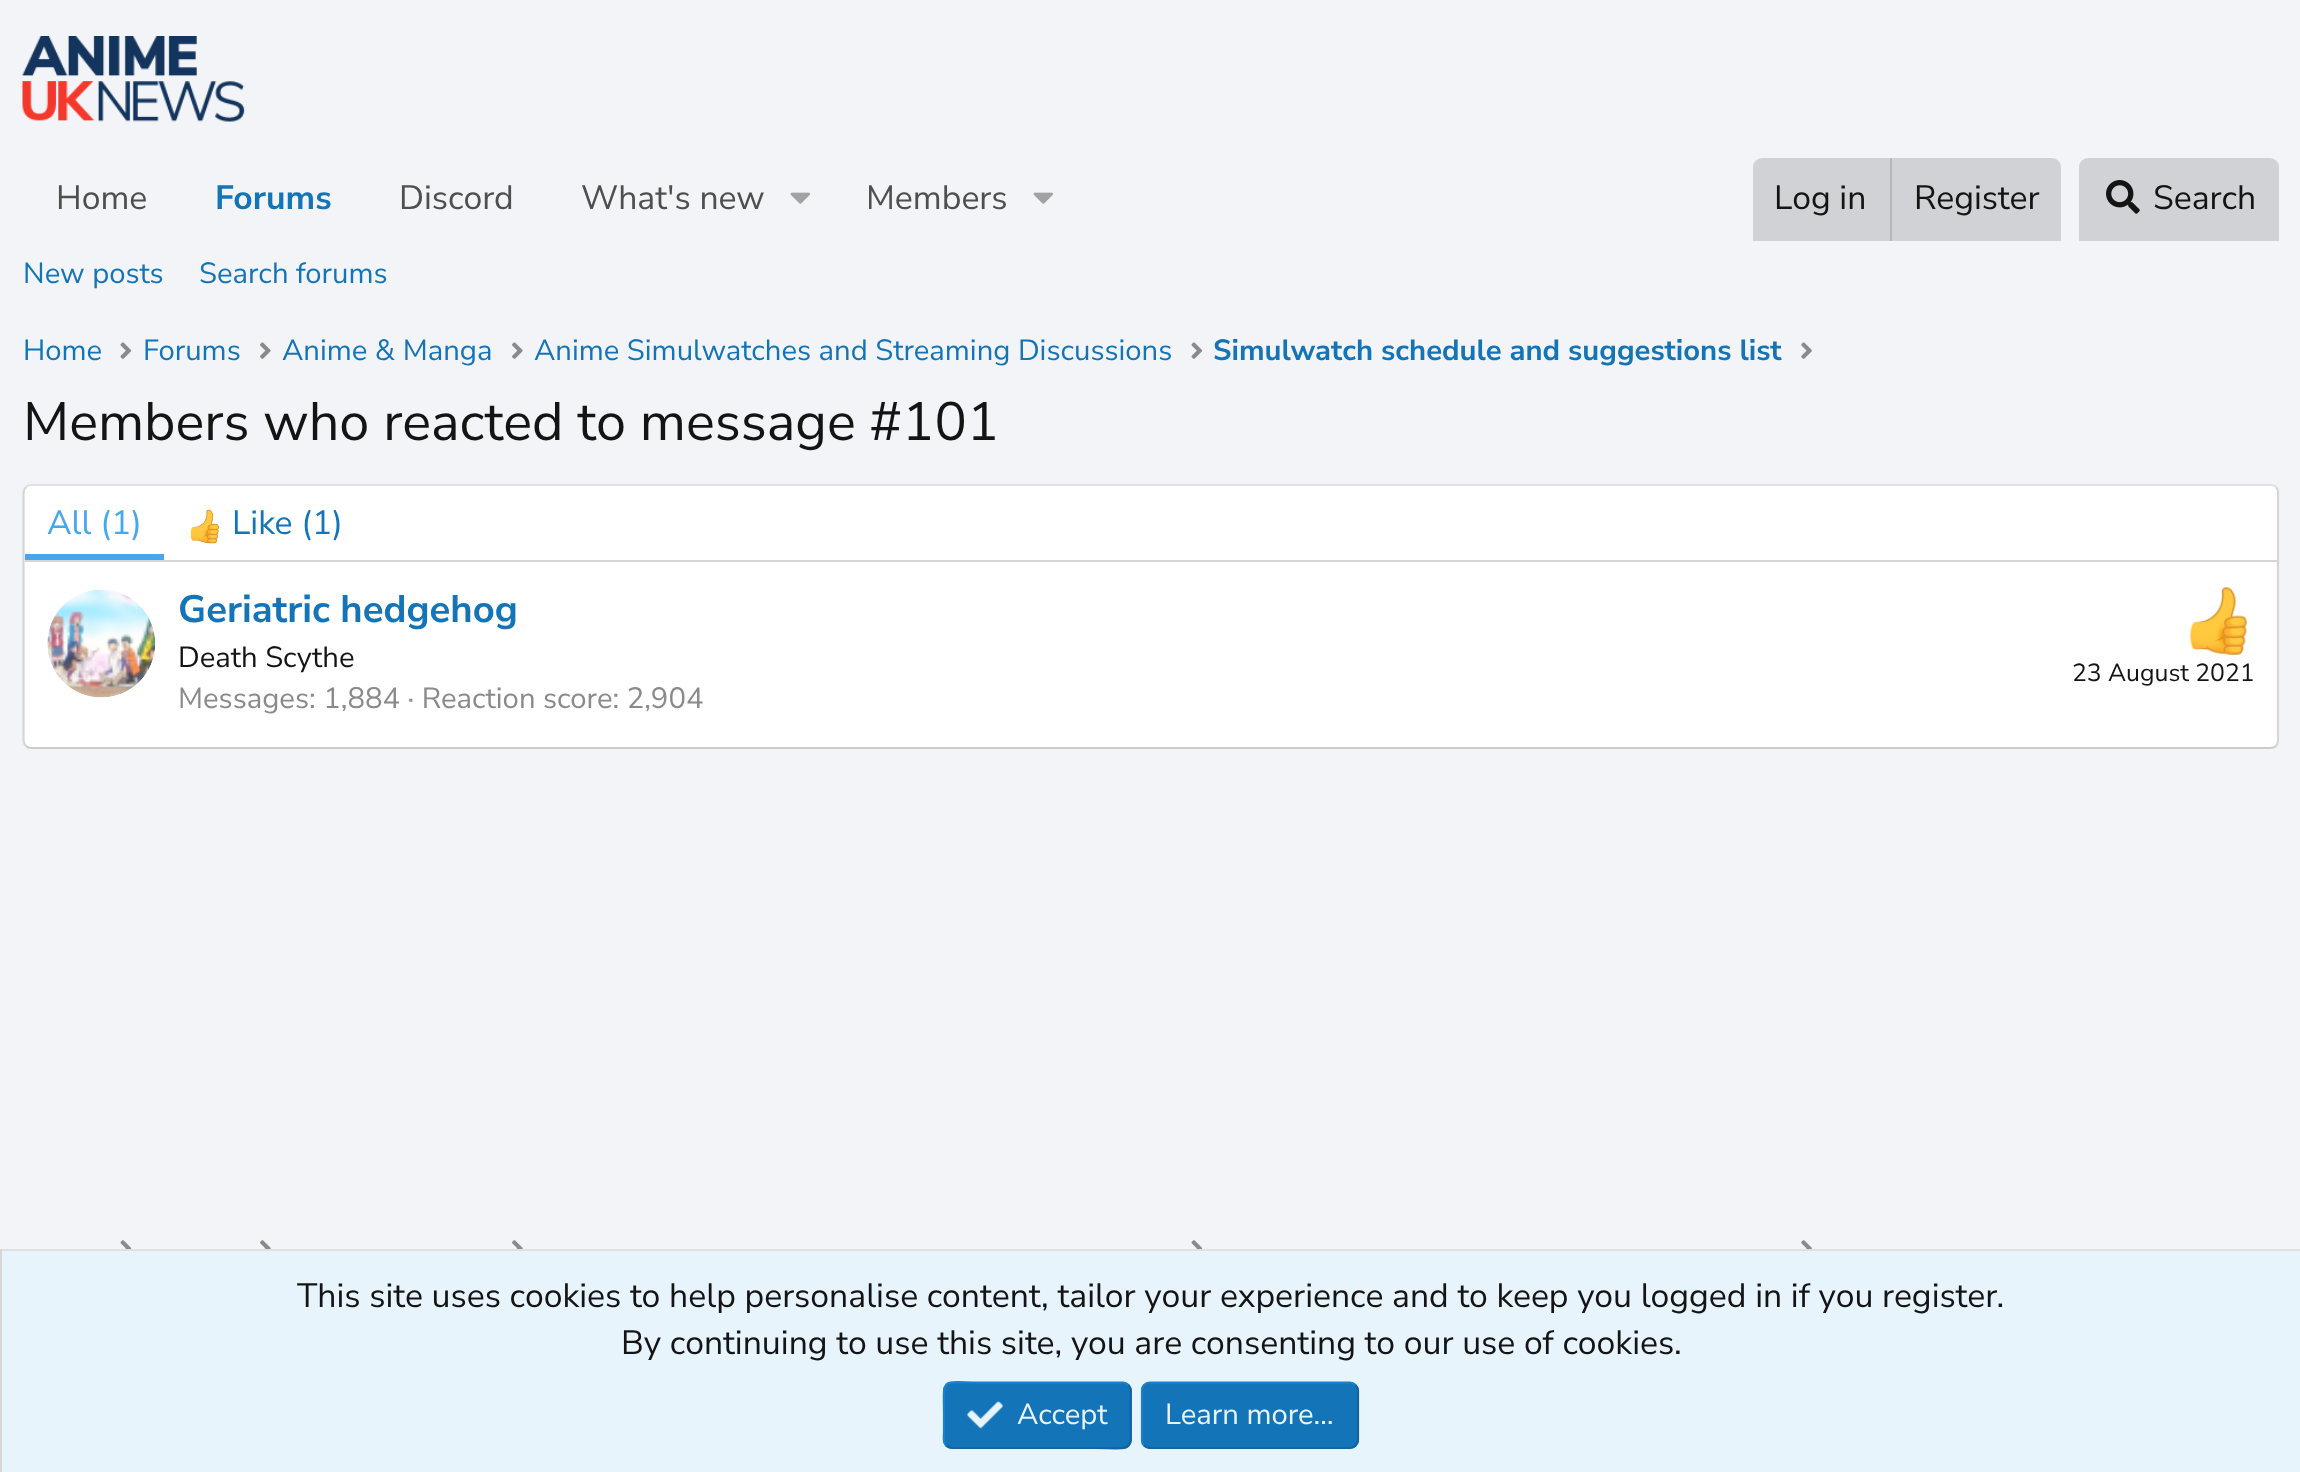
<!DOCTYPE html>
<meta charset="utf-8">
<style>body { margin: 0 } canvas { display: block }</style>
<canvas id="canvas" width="2300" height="1472"></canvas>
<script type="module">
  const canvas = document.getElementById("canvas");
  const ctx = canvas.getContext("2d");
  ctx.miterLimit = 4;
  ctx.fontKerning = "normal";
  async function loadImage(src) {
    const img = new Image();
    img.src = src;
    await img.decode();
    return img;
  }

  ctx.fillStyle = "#f2f4f7";
  ctx.fillRect(0, 0, 2300, 1472);
  ctx.drawImage(await loadImage("img1.png"), 22, 36, 223, 86);
  ctx.font = "33.75px Nunito Sans";
  ctx.fillStyle = "#4f4f4f";
  ctx.fillText("Home", 56, 209);
  ctx.font = "bold 33.75px Nunito Sans";
  ctx.fillStyle = "#1474b8";
  ctx.fillText("Forums", 215, 209);
  ctx.font = "33.75px Nunito Sans";
  ctx.fillStyle = "#4f4f4f";
  ctx.fillText("Discord", 399, 209);
  ctx.fillText("What's new", 581, 209);
  ctx.drawImage(await loadImage("img2.png"), 790, 192, 20, 12);
  ctx.fillText("Members", 866, 209);
  ctx.drawImage(await loadImage("img2.png"), 1033, 192, 20, 12);
  ctx.fillStyle = "#d1d2d5";
  ctx.beginPath();
  ctx.roundRect(1753, 158, 308, 83, [9, 9, 0, 0]);
  ctx.fill();
  ctx.fillStyle = "#141414";
  ctx.fillText("Log in", 1774, 209);
  ctx.fillStyle = "#b5b6b8";
  ctx.fillRect(1890, 158, 2, 83);
  ctx.fillStyle = "#141414";
  ctx.fillText("Register", 1914, 209);
  ctx.fillStyle = "#d1d2d5";
  ctx.beginPath();
  ctx.roundRect(2079, 158, 200, 83, [9, 9, 0, 0]);
  ctx.fill();
  ctx.drawImage(await loadImage("img3.png"), 2106, 180, 34, 34);
  ctx.fillStyle = "#141414";
  ctx.fillText("Search", 2153, 209);
  ctx.font = "29.25px Nunito Sans";
  ctx.fillStyle = "#1474b8";
  ctx.fillText("New posts", 23, 283);
  ctx.fillText("Search forums", 199, 283);
  ctx.fillText("Home", 23, 360);
  ctx.drawImage(await loadImage("img4.png"), 120, 342, 12, 17);
  ctx.fillText("Forums", 143, 360);
  ctx.drawImage(await loadImage("img5.png"), 260, 342, 11, 17);
  ctx.fillText("Anime & Manga", 282, 360);
  ctx.drawImage(await loadImage("img5.png"), 512, 342, 11, 17);
  ctx.fillText("Anime Simulwatches and Streaming Discussions", 534, 360);
  ctx.drawImage(await loadImage("img4.png"), 1191, 342, 12, 17);
  ctx.font = "bold 29.25px Nunito Sans";
  ctx.fillText("Simulwatch schedule and suggestions list", 1213, 360);
  ctx.drawImage(await loadImage("img6.png"), 1801, 342, 11, 17);
  ctx.font = "54px Nunito Sans";
  ctx.fillStyle = "#141414";
  ctx.fillText("Members who reacted to message #101", 23, 440);
  ctx.fillStyle = "#ffffff";
  ctx.beginPath();
  ctx.roundRect(23, 484, 2256, 265, 9);
  ctx.fill();
  ctx.beginPath();
  ctx.moveTo(26, 487);
  ctx.bezierCurveTo(27.5, 485.5, 29.5, 485, 31.5, 485);
  ctx.lineTo(2270, 485);
  ctx.bezierCurveTo(2272.5, 485, 2274.5, 485.5, 2276, 487);
  ctx.strokeStyle = "#e0e0e0";
  ctx.lineWidth = 2.2;
  ctx.stroke();
  ctx.beginPath();
  ctx.moveTo(2276, 487);
  ctx.bezierCurveTo(2277.5, 488.5, 2278, 490.5, 2278, 493);
  ctx.lineTo(2278, 740);
  ctx.bezierCurveTo(2278, 742.5, 2277.5, 744.5, 2276, 746);
  ctx.strokeStyle = "#d6d6d6";
  ctx.stroke();
  ctx.beginPath();
  ctx.moveTo(2276, 746);
  ctx.bezierCurveTo(2274.5, 747.5, 2272.5, 748, 2270, 748);
  ctx.lineTo(31.5, 748);
  ctx.bezierCurveTo(29.5, 748, 27.5, 747.5, 26, 746);
  ctx.strokeStyle = "#cccccc";
  ctx.stroke();
  ctx.beginPath();
  ctx.moveTo(26, 746);
  ctx.bezierCurveTo(24.5, 744.5, 23.5, 742.5, 23.5, 740);
  ctx.lineTo(23.5, 493);
  ctx.bezierCurveTo(23.5, 490.5, 24.5, 488.5, 26, 487);
  ctx.strokeStyle = "#d6d6d6";
  ctx.stroke();
  ctx.beginPath();
  ctx.roundRect(25, 486, 2252, 77, [7, 7, 0, 0]);
  ctx.fill();
  ctx.fillStyle = "#d6d6d6";
  ctx.fillRect(25, 560, 2252, 2);
  ctx.fillStyle = "#47a7eb";
  ctx.fillRect(25, 554, 139, 6);
  ctx.font = "33.75px Nunito Sans";
  ctx.fillText("All (1)", 47, 534);
  ctx.drawImage(await loadImage("img7.png"), 190, 509, 29, 35);
  ctx.fillStyle = "#1474b8";
  ctx.fillText("Like (1)", 232, 534);
  ctx.drawImage(await loadImage("img8.png"), 47, 589, 108, 109);
  ctx.font = "bold 38.25px Nunito Sans";
  ctx.fillText("Geriatric hedgehog", 178, 622);
  ctx.font = "29.25px Nunito Sans";
  ctx.fillStyle = "#141414";
  ctx.fillText("Death Scythe", 178, 667);
  ctx.drawImage(await loadImage("img9.png"), 2190, 587, 57, 68);
  ctx.font = "24.75px Nunito Sans";
  ctx.fillText("23 August 2021", 2072, 681);
  ctx.font = "29.25px Nunito Sans";
  ctx.fillStyle = "#8a8a8a";
  ctx.fillText("Messages: 1,884 · Reaction score: 2,904", 178, 708);
  ctx.drawImage(await loadImage("img10.png"), 120, 1240, 12, 9);
  ctx.drawImage(await loadImage("img11.png"), 260, 1240, 11, 9);
  ctx.drawImage(await loadImage("img11.png"), 512, 1240, 11, 9);
  ctx.drawImage(await loadImage("img10.png"), 1191, 1240, 12, 9);
  ctx.drawImage(await loadImage("img12.png"), 1801, 1240, 11, 9);
  ctx.fillStyle = "#e8f4fc";
  ctx.fillRect(2, 1251, 2298, 221);
  ctx.fillStyle = "#e0e0e0";
  ctx.fillRect(0, 1249, 2300, 2);
  ctx.fillStyle = "#d6d6d6";
  ctx.fillRect(0, 1249, 2, 223);
  ctx.font = "33.75px Nunito Sans";
  ctx.fillStyle = "#141414";
  ctx.fillText("This site uses cookies to help personalise content, tailor your experience and to keep you logged in if you register.", 297, 1307);
  ctx.fillText("By continuing to use this site, you are consenting to our use of cookies.", 621, 1354);
  ctx.fillStyle = "#1474b8";
  ctx.beginPath();
  ctx.roundRect(943, 1382, 189, 67, 9);
  ctx.fill();
  ctx.beginPath();
  ctx.moveTo(1128.5, 1385);
  ctx.bezierCurveTo(1132, 1388.5, 1130.5, 1394.5, 1130.5, 1399);
  ctx.lineTo(1130.5, 1415);
  ctx.bezierCurveTo(1130.5, 1454, 1135.5, 1448, 1094, 1448);
  ctx.lineTo(952, 1448);
  ctx.bezierCurveTo(949.5, 1448, 947.5, 1447, 946, 1445.5);
  ctx.strokeStyle = "#1265a1";
  ctx.stroke();
  ctx.beginPath();
  ctx.moveTo(946, 1445.5);
  ctx.bezierCurveTo(942.5, 1442, 944, 1436, 944, 1432);
  ctx.lineTo(944, 1415);
  ctx.bezierCurveTo(944, 1376.5, 939, 1382.5, 980, 1382.5);
  ctx.lineTo(1123, 1382.5);
  ctx.bezierCurveTo(1125, 1382.5, 1127, 1383.5, 1128.5, 1385);
  ctx.strokeStyle = "#1782cf";
  ctx.stroke();
  ctx.drawImage(await loadImage("img13.png"), 967, 1401, 36, 28);
  ctx.font = "29.25px Nunito Sans";
  ctx.fillStyle = "#e8f4fc";
  ctx.fillText("Accept", 1017, 1424);
  ctx.fillStyle = "#1474b8";
  ctx.beginPath();
  ctx.roundRect(1141, 1382, 218, 67, 9);
  ctx.fill();
  ctx.beginPath();
  ctx.moveTo(1355.5, 1385);
  ctx.bezierCurveTo(1357, 1386.5, 1358, 1388.5, 1358, 1390.5);
  ctx.lineTo(1358, 1440);
  ctx.bezierCurveTo(1358, 1442, 1357, 1444, 1355.5, 1445.5);
  ctx.bezierCurveTo(1354, 1447, 1352, 1448, 1350, 1448);
  ctx.lineTo(1150, 1448);
  ctx.bezierCurveTo(1147.5, 1448, 1145.5, 1447, 1144, 1445.5);
  ctx.strokeStyle = "#1265a1";
  ctx.stroke();
  ctx.beginPath();
  ctx.moveTo(1144, 1445.5);
  ctx.bezierCurveTo(1142.5, 1444, 1142, 1442, 1142, 1440);
  ctx.lineTo(1142, 1390.5);
  ctx.bezierCurveTo(1142, 1388.5, 1142.5, 1386.5, 1144, 1385);
  ctx.bezierCurveTo(1145.5, 1383.5, 1147.5, 1382.5, 1150, 1382.5);
  ctx.lineTo(1350, 1382.5);
  ctx.bezierCurveTo(1352, 1382.5, 1354, 1383.5, 1355.5, 1385);
  ctx.strokeStyle = "#1782cf";
  ctx.stroke();
  ctx.fillStyle = "#e8f4fc";
  ctx.fillText("Learn more…", 1165, 1424);
</script>
